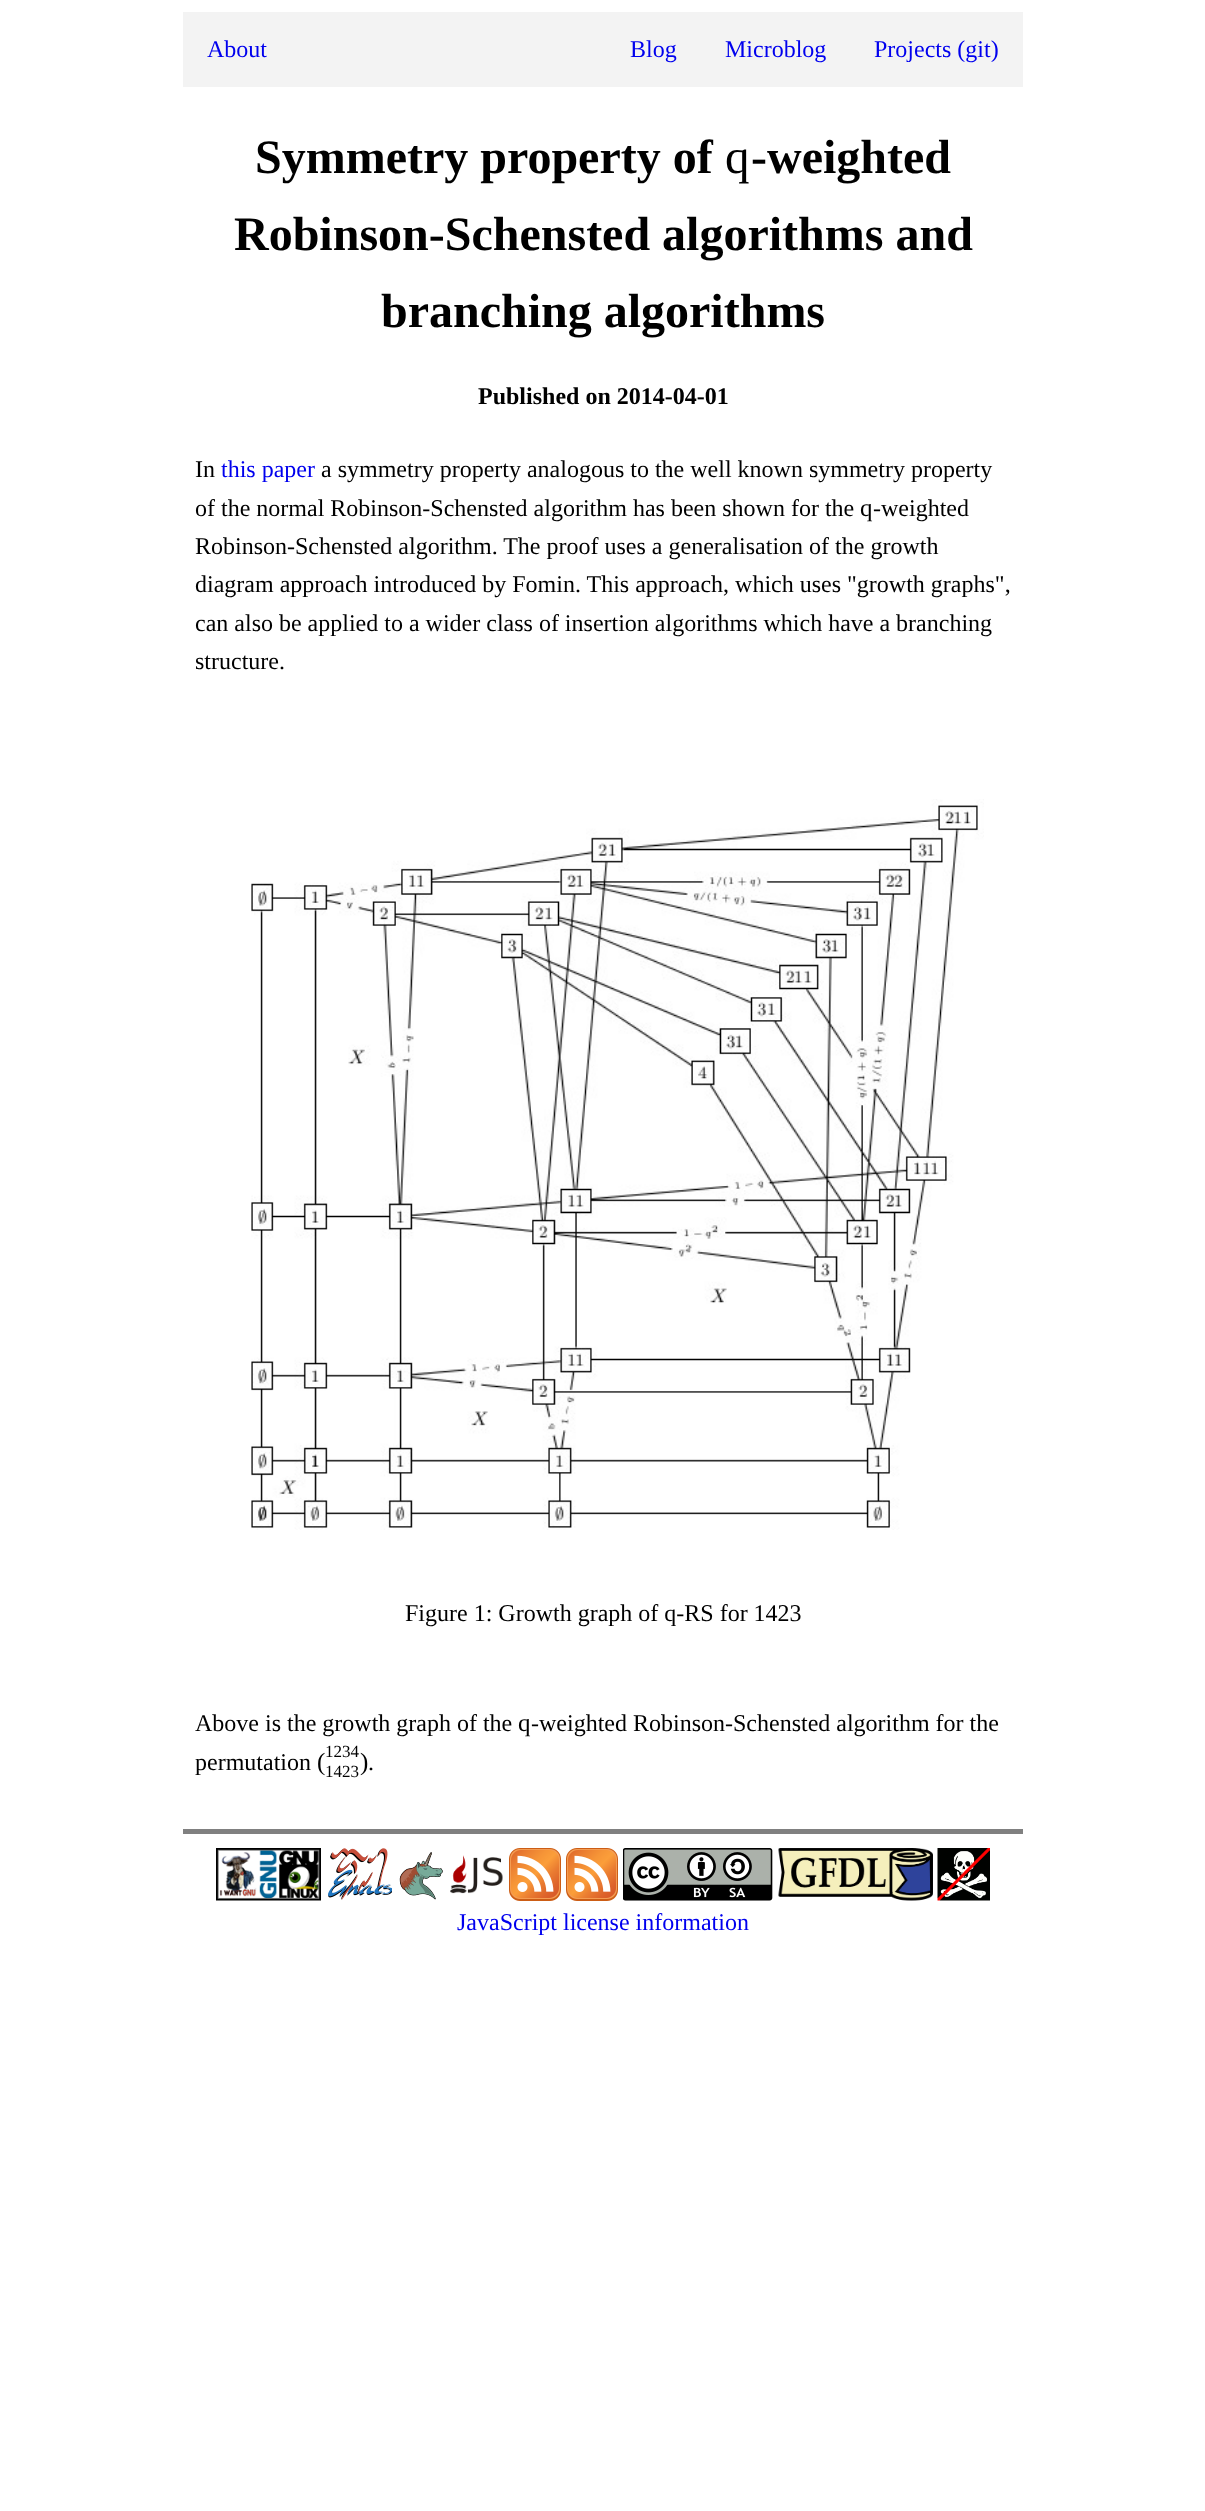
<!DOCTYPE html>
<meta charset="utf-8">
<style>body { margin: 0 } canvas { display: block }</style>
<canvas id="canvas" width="1205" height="2511"></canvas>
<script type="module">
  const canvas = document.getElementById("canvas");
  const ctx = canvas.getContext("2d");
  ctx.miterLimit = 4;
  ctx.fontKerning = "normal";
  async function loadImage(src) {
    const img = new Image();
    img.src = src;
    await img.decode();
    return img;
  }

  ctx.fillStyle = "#ffffff";
  ctx.fillRect(0, 0, 1205, 2511);
  ctx.fillStyle = "#f3f3f3";
  ctx.fillRect(183, 12, 840, 75);
  ctx.font = "24px Liberation Serif";
  ctx.fillStyle = "#0000ee";
  ctx.fillText("About", 207, 57);
  ctx.fillText("Blog", 630, 57);
  ctx.fillText("Microblog", 725, 57);
  ctx.fillText("Projects (git)", 874, 57);
  ctx.font = "bold 48px Liberation Serif";
  ctx.fillStyle = "#000000";
  ctx.fillText("Symmetry property of", 255, 173);
  ctx.font = "49px Liberation Serif";
  ctx.fillText("q", 725, 173);
  ctx.font = "bold 48px Liberation Serif";
  ctx.fillText("-weighted", 751, 173);
  ctx.fillText("Robinson-Schensted algorithms and", 234, 250);
  ctx.fillText("branching algorithms", 381, 327);
  ctx.font = "bold 24px Liberation Serif";
  ctx.fillText("Published on 2014-04-01", 478, 404);
  ctx.font = "24px Liberation Serif";
  ctx.fillText("In", 195, 477);
  ctx.fillStyle = "#0000ee";
  ctx.fillText("this paper", 221, 477);
  ctx.fillStyle = "#000000";
  ctx.fillText("a symmetry property analogous to the well known symmetry property", 321, 477);
  ctx.fillText("of the normal Robinson-Schensted algorithm has been shown for the", 195, 516);
  ctx.font = "25px Liberation Serif";
  ctx.fillText("q", 860, 516);
  ctx.font = "24px Liberation Serif";
  ctx.fillText("-weighted", 873, 516);
  ctx.fillText("Robinson-Schensted algorithm. The proof uses a generalisation of the growth", 195, 554);
  ctx.fillText("diagram approach introduced by Fomin. This approach, which uses \"growth graphs\",", 195, 592);
  ctx.fillText("can also be applied to a wider class of insertion algorithms which have a branching", 195, 631);
  ctx.fillText("structure.", 195, 669);
  ctx.drawImage(await loadImage("img1.png"), 251, 799, 733, 731);
  ctx.fillText("Figure 1: Growth graph of q-RS for 1423", 405, 1621);
  ctx.fillText("Above is the growth graph of the", 195, 1731);
  ctx.font = "25px Liberation Serif";
  ctx.fillText("q", 518, 1731);
  ctx.font = "24px Liberation Serif";
  ctx.fillText("-weighted Robinson-Schensted algorithm for the", 531, 1731);
  ctx.fillText("permutation", 195, 1770);
  ctx.font = "25px Liberation Serif";
  ctx.fillText("(", 317, 1770);
  ctx.font = "17px Liberation Serif";
  ctx.fillText("1234", 325, 1757);
  ctx.fillText("1423", 325, 1777);
  ctx.font = "25px Liberation Serif";
  ctx.fillText(")", 360, 1770);
  ctx.font = "24px Liberation Serif";
  ctx.fillText(".", 368, 1770);
  ctx.fillStyle = "#808080";
  ctx.fillRect(183, 1829, 840, 5);
  ctx.drawImage(await loadImage("img2.png"), 216, 1848, 105, 53);
  ctx.drawImage(await loadImage("img3.png"), 328, 1848, 64, 52);
  ctx.drawImage(await loadImage("img4.png"), 399, 1852, 44, 48);
  ctx.drawImage(await loadImage("img5.png"), 450, 1855, 53, 39);
  ctx.drawImage(await loadImage("img6.png"), 509, 1848, 52, 53);
  ctx.drawImage(await loadImage("img6.png"), 566, 1848, 52, 53);
  ctx.drawImage(await loadImage("img7.png"), 623, 1848, 150, 53);
  ctx.drawImage(await loadImage("img8.png"), 778, 1848, 155, 53);
  ctx.drawImage(await loadImage("img9.png"), 937, 1848, 53, 53);
  ctx.fillStyle = "#0000ee";
  ctx.fillText("JavaScript license information", 457, 1930);
</script>
